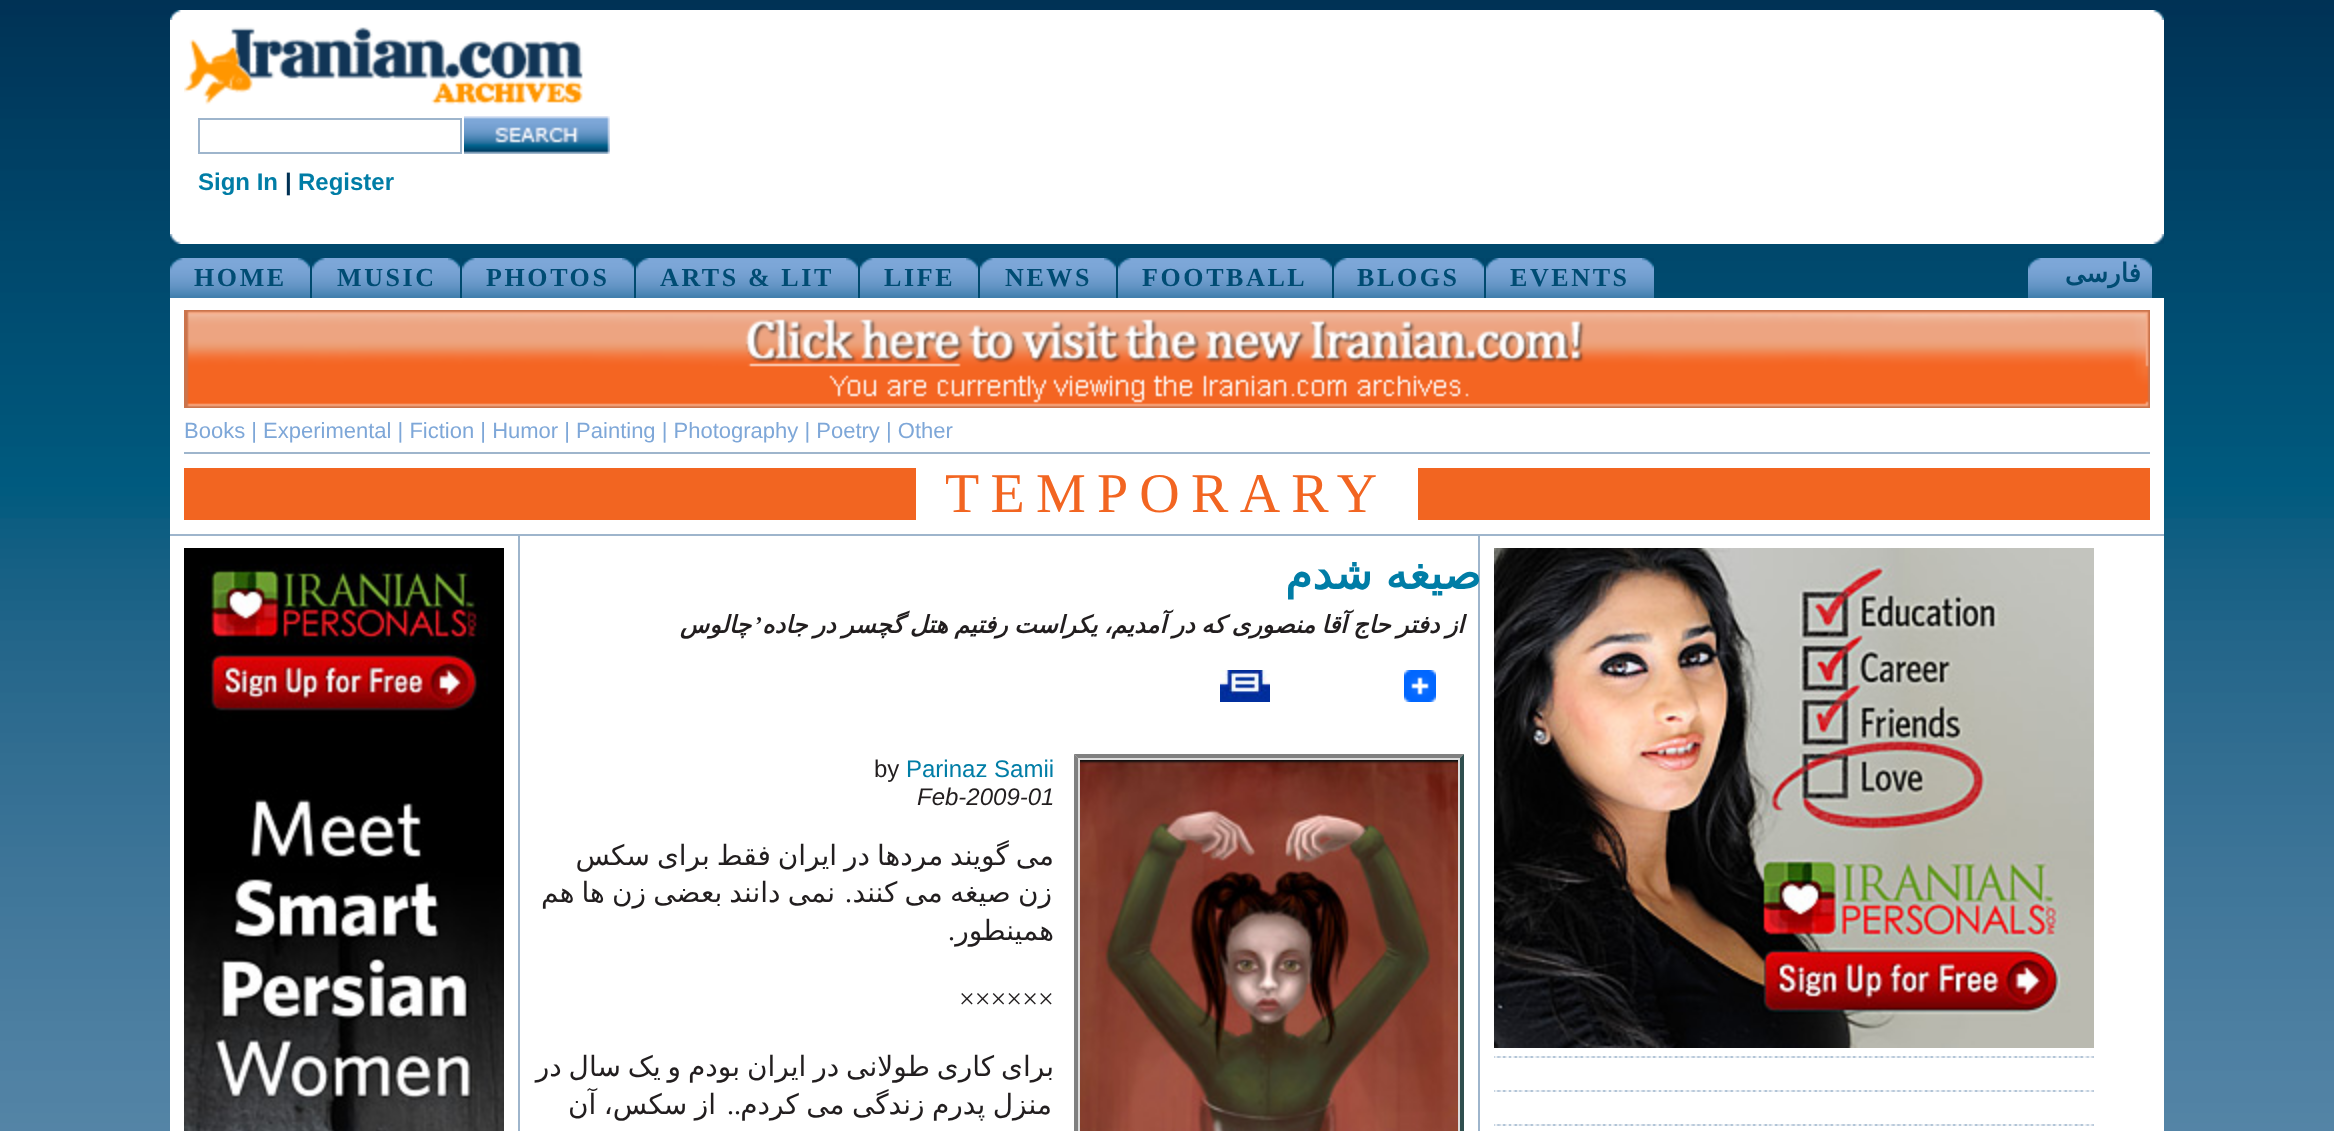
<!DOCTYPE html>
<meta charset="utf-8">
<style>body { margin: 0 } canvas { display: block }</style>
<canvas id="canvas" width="2334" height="1131"></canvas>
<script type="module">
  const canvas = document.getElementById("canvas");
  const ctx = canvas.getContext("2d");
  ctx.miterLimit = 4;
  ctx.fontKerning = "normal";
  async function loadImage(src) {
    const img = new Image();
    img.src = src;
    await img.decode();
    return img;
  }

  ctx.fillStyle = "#ffffff";
  ctx.fillRect(0, 0, 2334, 1131);
  ctx.drawImage(await loadImage("img1.png"), 0, 0, 2334, 1131);
  ctx.fillRect(170, 20, 1994, 214);
  ctx.drawImage(await loadImage("img2.png"), 170, 10, 1994, 10);
  ctx.drawImage(await loadImage("img3.png"), 184, 27, 399, 78);
  ctx.drawImage(await loadImage("img4.png"), 464, 116, 146, 38);
  ctx.strokeStyle = "#9eb5cc";
  ctx.lineWidth = 2;
  ctx.strokeRect(199, 119, 262, 34);
  ctx.font = "bold 24px Liberation Sans";
  ctx.fillStyle = "#007da6";
  ctx.fillText("Register", 298, 190);
  ctx.fillStyle = "#003154";
  ctx.fillText("|", 285, 190);
  ctx.fillStyle = "#007da6";
  ctx.fillText("Sign In", 198, 190);
  ctx.drawImage(await loadImage("img5.png"), 170, 234, 1994, 10);
  ctx.drawImage(await loadImage("img6.png"), 2140, 258, 12, 40);
  ctx.drawImage(await loadImage("img7.png"), 2028, 258, 112, 40);
  ctx.letterSpacing = "2.6px";
  ctx.direction = "rtl";
  ctx.font = "bold 26px DejaVu Sans";
  ctx.fillStyle = "#004c73";
  ctx.fillText("فارسی", 2141, 282);
  ctx.drawImage(await loadImage("img6.png"), 1642, 258, 12, 40);
  ctx.drawImage(await loadImage("img8.png"), 1486, 258, 156, 40);
  ctx.direction = "ltr";
  ctx.font = "bold 26px Liberation Serif";
  ctx.fillText("EVENTS", 1510, 286);
  ctx.drawImage(await loadImage("img6.png"), 1472, 258, 12, 40);
  ctx.drawImage(await loadImage("img9.png"), 1334, 258, 138, 40);
  ctx.fillText("BLOGS", 1357, 286);
  ctx.drawImage(await loadImage("img6.png"), 1320, 258, 12, 40);
  ctx.drawImage(await loadImage("img10.png"), 1118, 258, 202, 40);
  ctx.fillText("FOOTBALL", 1142, 286);
  ctx.drawImage(await loadImage("img6.png"), 1104, 258, 12, 40);
  ctx.drawImage(await loadImage("img11.png"), 980, 258, 124, 40);
  ctx.fillText("NEWS", 1005, 286);
  ctx.drawImage(await loadImage("img6.png"), 966, 258, 12, 40);
  ctx.drawImage(await loadImage("img12.png"), 860, 258, 106, 40);
  ctx.fillText("LIFE", 884, 286);
  ctx.drawImage(await loadImage("img6.png"), 846, 258, 12, 40);
  ctx.drawImage(await loadImage("img13.png"), 636, 258, 210, 40);
  ctx.fillText("ARTS & LIT", 660, 286);
  ctx.drawImage(await loadImage("img6.png"), 622, 258, 12, 40);
  ctx.drawImage(await loadImage("img14.png"), 462, 258, 160, 40);
  ctx.fillText("PHOTOS", 486, 286);
  ctx.drawImage(await loadImage("img6.png"), 448, 258, 12, 40);
  ctx.drawImage(await loadImage("img15.png"), 312, 258, 136, 40);
  ctx.fillText("MUSIC", 337, 286);
  ctx.drawImage(await loadImage("img6.png"), 298, 258, 12, 40);
  ctx.drawImage(await loadImage("img16.png"), 170, 258, 128, 40);
  ctx.fillText("HOME", 194, 286);
  ctx.fillStyle = "#ffffff";
  ctx.fillRect(170, 536, 1994, 595);
  ctx.fillRect(170, 298, 1994, 236);
  ctx.fillStyle = "#9eb5cc";
  ctx.fillRect(170, 534, 1994, 2);
  ctx.drawImage(await loadImage("img17.png"), 184, 310, 1966, 98);
  ctx.fillRect(184, 452, 1966, 2);
  ctx.letterSpacing = "0px";
  ctx.font = "22px Liberation Sans";
  ctx.fillStyle = "#7ea7d8";
  ctx.fillText("Books | Experimental | Fiction | Humor | Painting | Photography | Poetry | Other", 184, 438);
  ctx.fillStyle = "#f26521";
  ctx.fillRect(184, 468, 1966, 52);
  ctx.fillStyle = "#ffffff";
  ctx.fillRect(916, 468, 502, 52);
  ctx.letterSpacing = "11.25px";
  ctx.font = "56px Liberation Serif";
  ctx.fillStyle = "#f26521";
  ctx.fillText("TEMPORARY", 945, 512);
  ctx.drawImage(await loadImage("img18.png"), 1494, 1056, 600, 2);
  ctx.drawImage(await loadImage("img19.png"), 1494, 548, 600, 500);
  ctx.drawImage(await loadImage("img18.png"), 1494, 1090, 600, 2);
  ctx.drawImage(await loadImage("img18.png"), 1494, 1124, 600, 2);
  ctx.fillStyle = "#9eb5cc";
  ctx.fillRect(1478, 536, 2, 595);
  ctx.letterSpacing = "2.25px";
  ctx.wordSpacing = "-3px";
  ctx.direction = "rtl";
  ctx.font = "bold 44px DejaVu Sans";
  ctx.fillStyle = "#007da6";
  ctx.fillText("صیغه شدم", 1481, 589);
  ctx.letterSpacing = "0px";
  ctx.wordSpacing = "-1.4px";
  ctx.font = "italic bold 24px DejaVu Sans";
  ctx.fillStyle = "#221e1f";
  ctx.fillText("از دفتر حاج آقا منصوری که در آمدیم، یکراست رفتیم هتل گچسر در جاده", 1464, 633);
  ctx.wordSpacing = "0px";
  ctx.font = "italic bold 24px Liberation Serif";
  ctx.fillText("’", 762, 633);
  ctx.font = "italic bold 24px DejaVu Sans";
  ctx.fillText("چالوس", 751, 633);
  ctx.drawImage(await loadImage("img20.png"), 1404, 670, 32, 32);
  ctx.drawImage(await loadImage("img21.png"), 1220, 670, 50, 32);
  ctx.fillStyle = "#dcdcdc";
  ctx.fillRect(1074, 754, 390, 377);
  ctx.fillStyle = "#808080";
  ctx.beginPath();
  ctx.moveTo(1074, 754);
  ctx.lineTo(1464, 754);
  ctx.lineTo(1460, 758);
  ctx.lineTo(1078, 758);
  ctx.closePath();
  ctx.fill();
  ctx.fillStyle = "#2f4f4f";
  ctx.beginPath();
  ctx.moveTo(1464, 754);
  ctx.lineTo(1464, 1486);
  ctx.lineTo(1460, 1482);
  ctx.lineTo(1460, 758);
  ctx.closePath();
  ctx.fill();
  ctx.drawImage(await loadImage("img22.png"), 1080, 760, 378, 371);
  ctx.fillStyle = "#808080";
  ctx.beginPath();
  ctx.moveTo(1074, 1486);
  ctx.lineTo(1074, 754);
  ctx.lineTo(1078, 758);
  ctx.lineTo(1078, 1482);
  ctx.closePath();
  ctx.fill();
  ctx.direction = "ltr";
  ctx.font = "24px Liberation Sans";
  ctx.fillStyle = "#007da6";
  ctx.fillText("Parinaz Samii", 906, 777);
  ctx.fillStyle = "#221e1f";
  ctx.fillText("by", 874, 777);
  ctx.font = "italic 24px Liberation Sans";
  ctx.fillText("Feb-2009-01", 917, 805);
  ctx.wordSpacing = "-2px";
  ctx.direction = "rtl";
  ctx.font = "28px DejaVu Sans";
  ctx.fillText("می گویند مردها در ایران فقط برای سکس", 1054, 865);
  ctx.wordSpacing = "-1.75px";
  ctx.fillText("زن صیغه می کنند", 1052, 902);
  ctx.wordSpacing = "0px";
  ctx.font = "28px Liberation Serif";
  ctx.fillText(".", 852, 902);
  ctx.wordSpacing = "-1.75px";
  ctx.font = "28px DejaVu Sans";
  ctx.fillText("نمی دانند بعضی زن ها هم", 835, 902);
  ctx.wordSpacing = "0px";
  ctx.fillText("همینطور", 1054, 940);
  ctx.font = "28px Liberation Serif";
  ctx.fillText(".", 955, 940);
  ctx.direction = "ltr";
  ctx.fillText("××××××", 959, 1008);
  ctx.wordSpacing = "-2px";
  ctx.direction = "rtl";
  ctx.font = "28px DejaVu Sans";
  ctx.fillText("برای کاری طولانی در ایران بودم و یک سال در", 1054, 1076);
  ctx.wordSpacing = "-1.5px";
  ctx.fillText("منزل پدرم زندگی می کردم", 1052, 1114);
  ctx.wordSpacing = "0px";
  ctx.font = "28px Liberation Serif";
  ctx.fillText("..", 741, 1114);
  ctx.wordSpacing = "-1.5px";
  ctx.font = "28px DejaVu Sans";
  ctx.fillText("از سکس، آن", 716, 1114);
  ctx.fillStyle = "#9eb5cc";
  ctx.fillRect(518, 536, 2, 595);
  ctx.drawImage(await loadImage("img23.png"), 184, 548, 320, 583);
</script>
